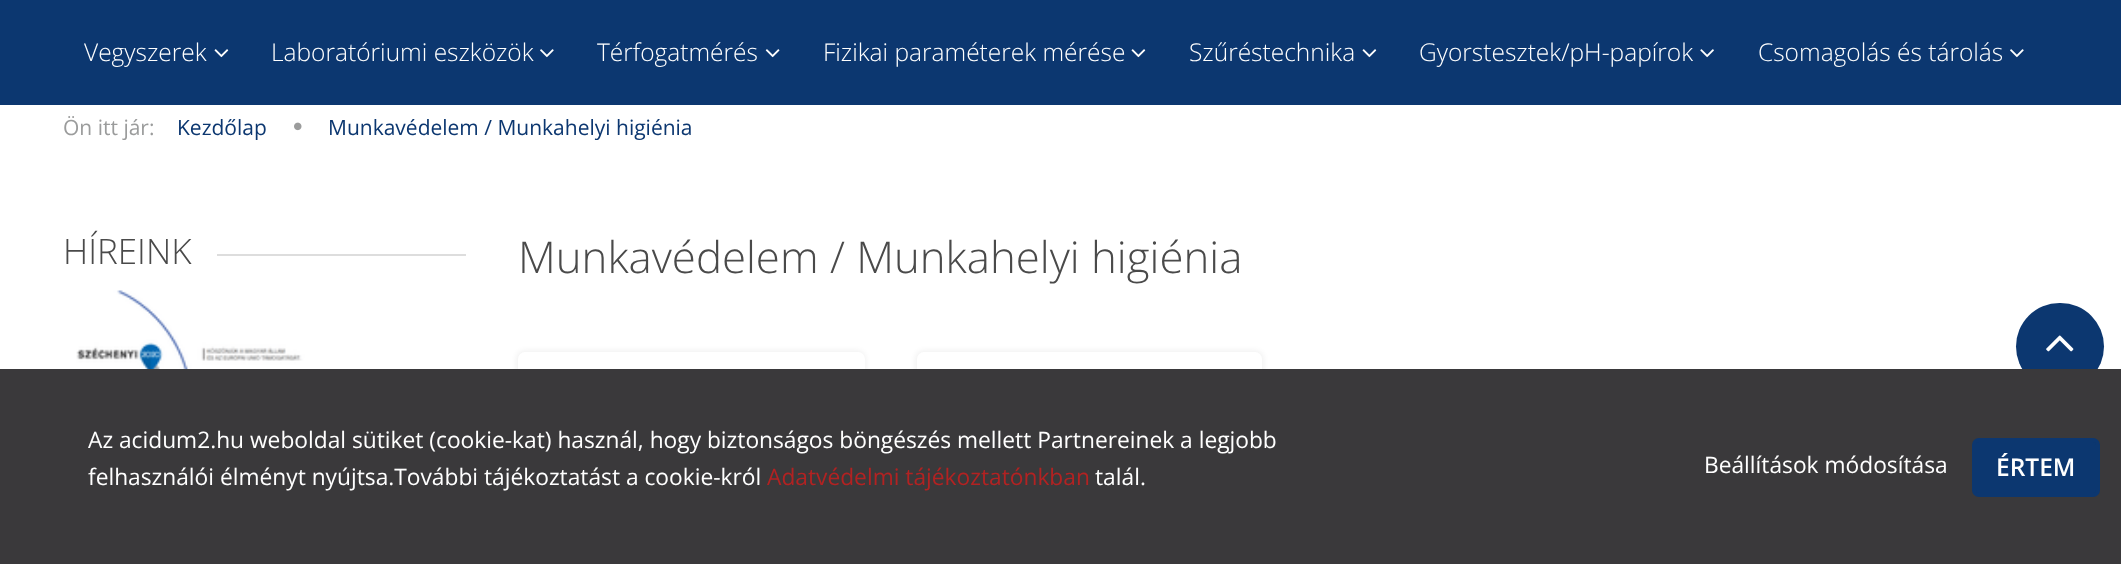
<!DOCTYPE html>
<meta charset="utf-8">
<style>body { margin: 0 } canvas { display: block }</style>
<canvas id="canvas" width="2121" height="564"></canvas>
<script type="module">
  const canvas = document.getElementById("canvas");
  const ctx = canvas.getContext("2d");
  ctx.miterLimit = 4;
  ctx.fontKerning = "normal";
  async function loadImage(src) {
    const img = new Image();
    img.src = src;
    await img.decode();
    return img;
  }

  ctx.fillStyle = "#ffffff";
  ctx.fillRect(0, 0, 2121, 564);
  ctx.fillStyle = "#0c3770";
  ctx.fillRect(0, 0, 2121, 105);
  ctx.font = "300 24.5px Open Sans";
  ctx.fillStyle = "#ffffff";
  ctx.fillText("Vegyszerek", 84, 61);
  ctx.drawImage(await loadImage("img1.png"), 214, 49, 15, 9);
  ctx.fillText("Laboratóriumi eszközök", 271, 61);
  ctx.drawImage(await loadImage("img2.png"), 540, 49, 14, 9);
  ctx.fillText("Térfogatmérés", 597, 61);
  ctx.drawImage(await loadImage("img3.png"), 765, 49, 15, 9);
  ctx.fillText("Fizikai paraméterek mérése", 823, 61);
  ctx.drawImage(await loadImage("img1.png"), 1131, 49, 15, 9);
  ctx.fillText("Szűréstechnika", 1189, 61);
  ctx.drawImage(await loadImage("img1.png"), 1362, 49, 15, 9);
  ctx.fillText("Gyorstesztek/pH-papírok", 1419, 61);
  ctx.drawImage(await loadImage("img4.png"), 1700, 49, 14, 9);
  ctx.fillText("Csomagolás és tárolás", 1758, 61);
  ctx.drawImage(await loadImage("img2.png"), 2010, 49, 14, 9);
  ctx.font = "21px Open Sans";
  ctx.fillStyle = "#9b9c9c";
  ctx.fillText("Ön itt jár:", 63, 135);
  ctx.fillStyle = "#0c3770";
  ctx.fillText("Kezdőlap", 177, 135);
  ctx.drawImage(await loadImage("img5.png"), 294, 122, 8, 9);
  ctx.fillText("Munkavédelem / Munkahelyi higiénia", 328, 135);
  ctx.font = "300 35px Open Sans";
  ctx.fillStyle = "#4a4a4a";
  ctx.fillText("HÍREINK", 63, 264);
  ctx.fillStyle = "#dddddd";
  ctx.fillRect(217, 254, 249, 2);
  ctx.drawImage(await loadImage("img6.png"), 76, 290, 327, 79);
  ctx.font = "300 43.75px Open Sans";
  ctx.fillStyle = "#4a4a4a";
  ctx.fillText("Munkavédelem / Munkahelyi higiénia", 518, 273);
  ctx.fillStyle = "rgba(0, 0, 0, 0.05)";
  ctx.filter = "blur(2.5px)";
  ctx.beginPath();
  ctx.roundRect(516, 350, 350, 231, 9);
  ctx.fill();
  ctx.filter = "none";
  ctx.fillStyle = "#ffffff";
  ctx.beginPath();
  ctx.roundRect(518, 352, 347, 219, 7);
  ctx.fill();
  ctx.fillStyle = "rgba(0, 0, 0, 0.05)";
  ctx.filter = "blur(2.5px)";
  ctx.beginPath();
  ctx.roundRect(915, 350, 349, 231, 9);
  ctx.fill();
  ctx.filter = "none";
  ctx.fillStyle = "#ffffff";
  ctx.beginPath();
  ctx.roundRect(917, 352, 345, 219, 7);
  ctx.fill();
  ctx.fillStyle = "#0c3770";
  ctx.beginPath();
  ctx.roundRect(2016, 303, 88, 87, 43.5);
  ctx.fill();
  ctx.drawImage(await loadImage("img7.png"), 2046, 335, 28, 17);
  ctx.fillStyle = "#3a393b";
  ctx.fillRect(0, 369, 2121, 195);
  ctx.font = "22.75px Open Sans";
  ctx.fillStyle = "#ffffff";
  ctx.fillText("Az acidum2.hu weboldal sütiket (cookie-kat) használ, hogy biztonságos böngészés mellett Partnereinek a legjobb", 88, 448);
  ctx.fillText("felhasználói élményt nyújtsa.További tájékoztatást a cookie-król", 88, 485);
  ctx.fillStyle = "#b22222";
  ctx.fillText("Adatvédelmi tájékoztatónkban", 767, 485);
  ctx.fillStyle = "#ffffff";
  ctx.fillText("talál.", 1095, 485);
  ctx.fillText("Beállítások módosítása", 1704, 473);
  ctx.fillStyle = "#0c3770";
  ctx.beginPath();
  ctx.roundRect(1974, 440, 124, 55, 5);
  ctx.fill();
  ctx.strokeStyle = "#0c3770";
  ctx.lineWidth = 4;
  ctx.stroke();
  ctx.font = "600 24.5px Open Sans";
  ctx.fillStyle = "#ffffff";
  ctx.fillText("ÉRTEM", 1996, 476);
</script>
